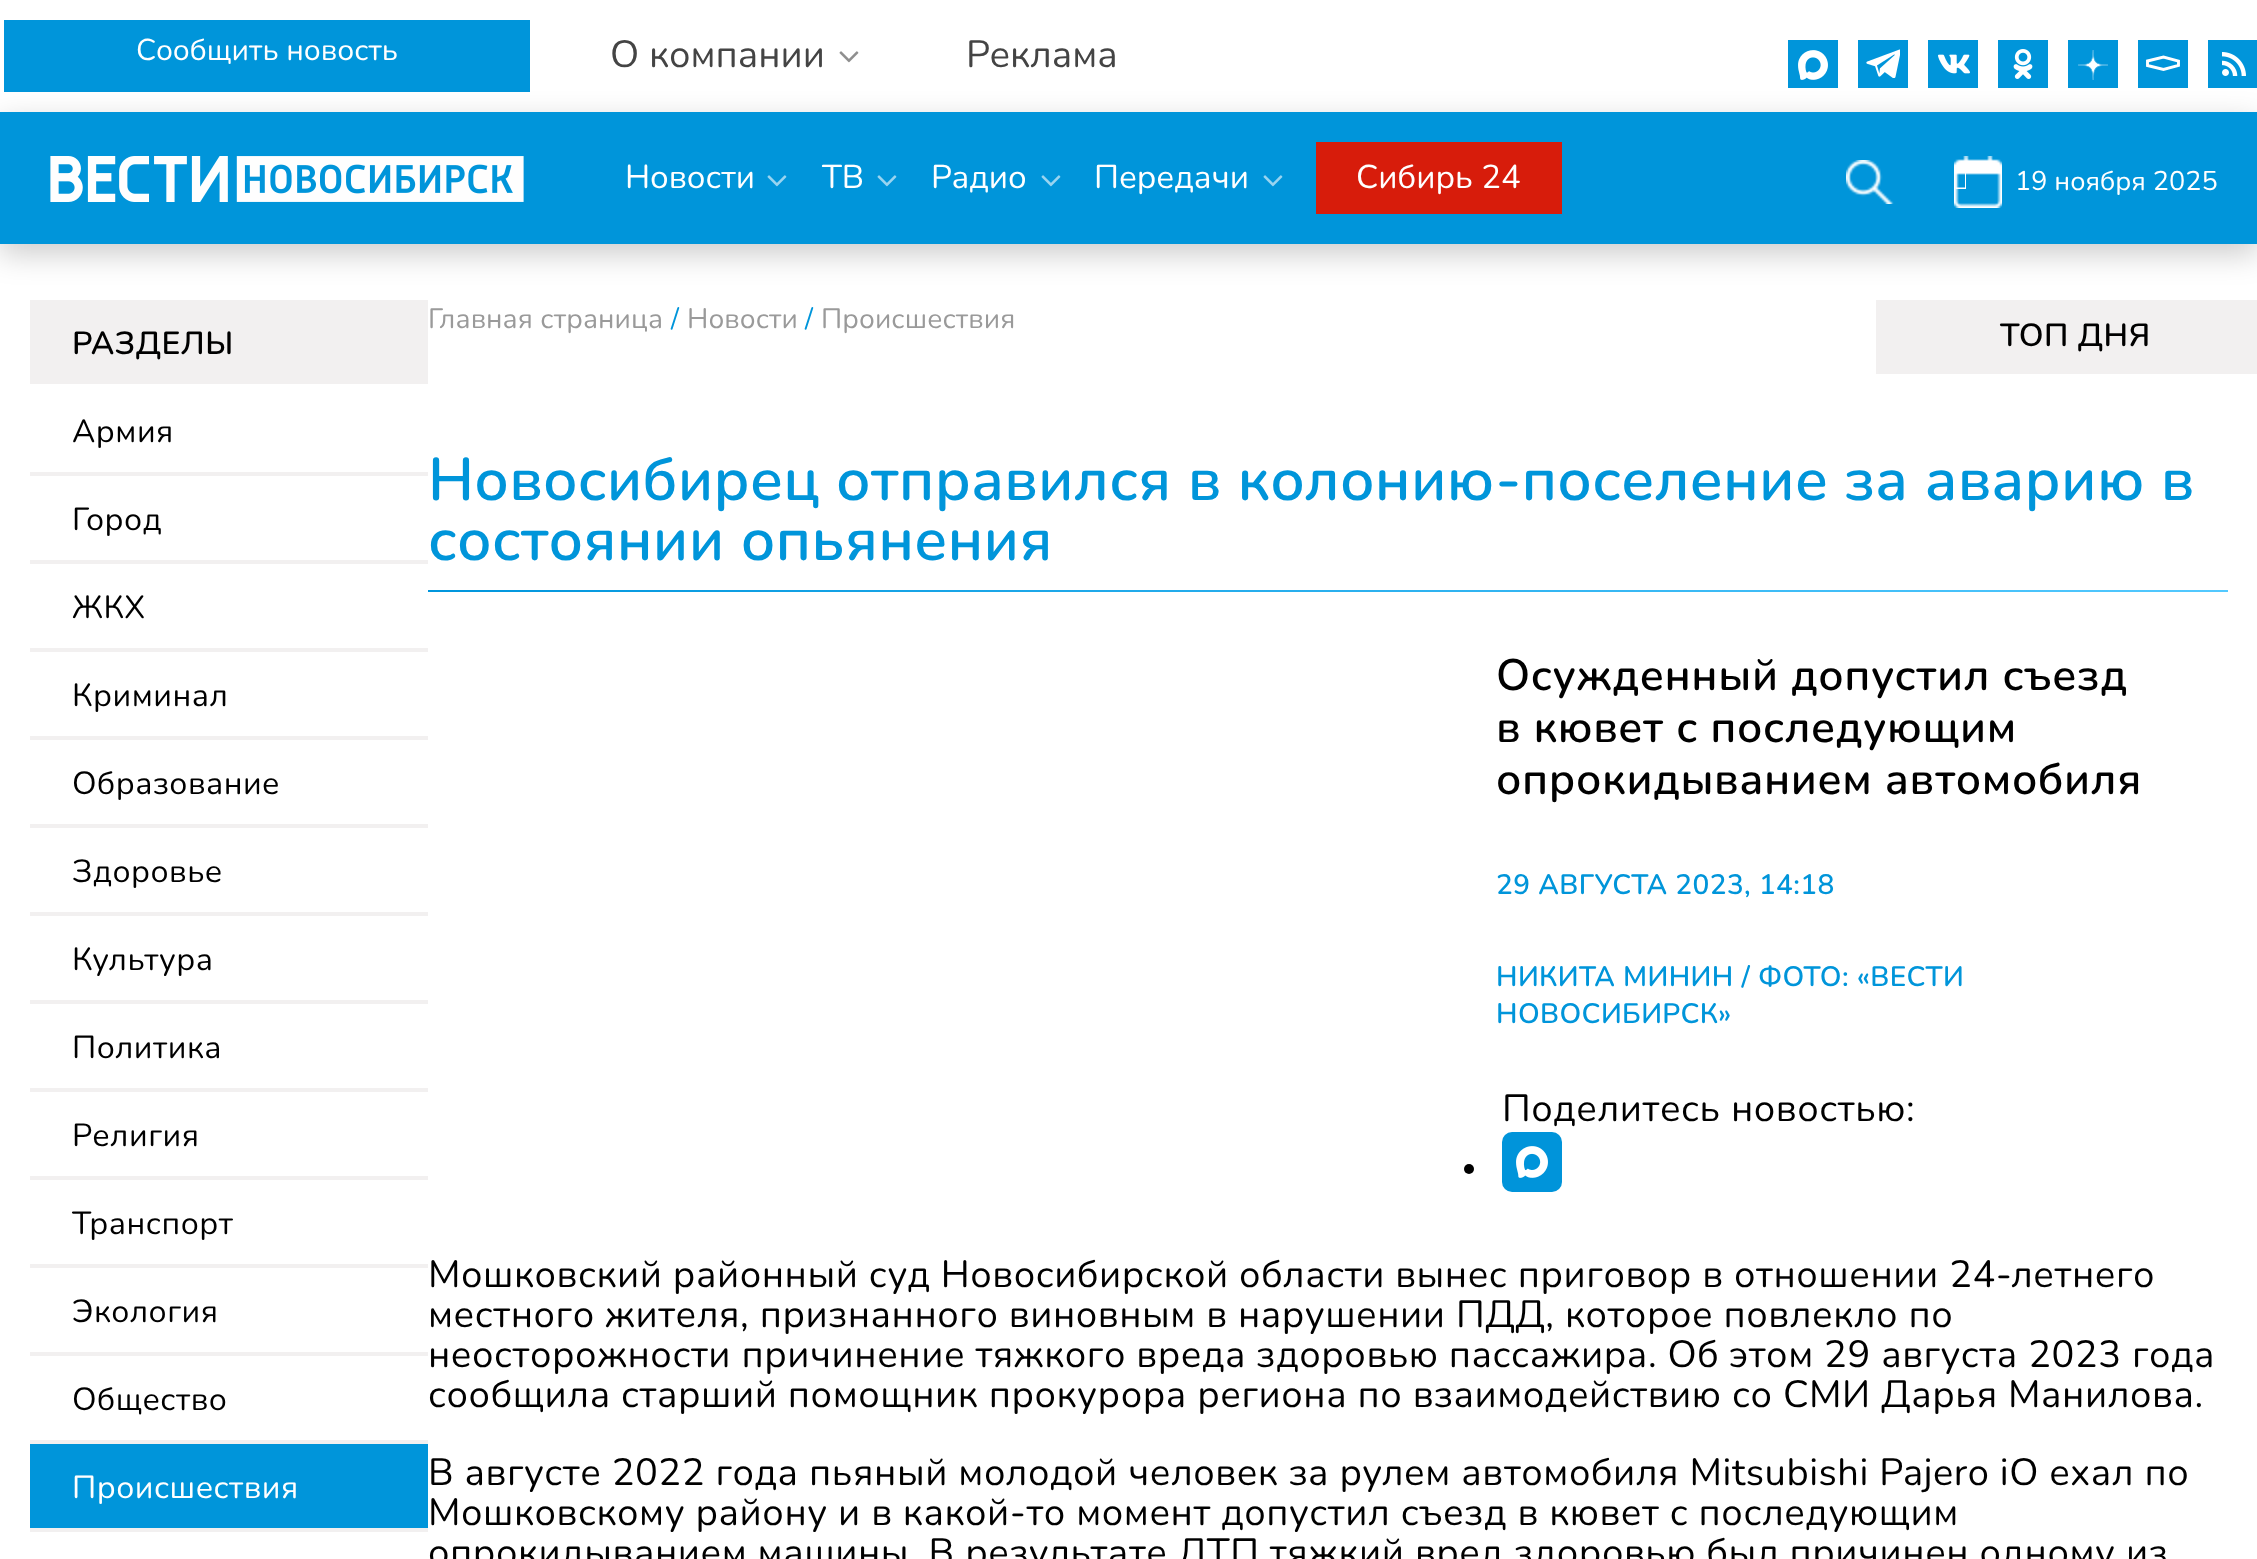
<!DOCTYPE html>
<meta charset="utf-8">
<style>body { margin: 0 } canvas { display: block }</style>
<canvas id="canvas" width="2257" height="1559"></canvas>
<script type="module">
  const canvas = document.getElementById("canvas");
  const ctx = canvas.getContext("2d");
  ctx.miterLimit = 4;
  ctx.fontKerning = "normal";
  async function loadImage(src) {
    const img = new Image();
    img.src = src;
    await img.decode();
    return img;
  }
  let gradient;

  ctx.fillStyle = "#ffffff";
  ctx.fillRect(0, 0, 2257, 1559);
  ctx.fillStyle = "rgba(0, 0, 0, 0.2)";
  ctx.filter = "blur(15px)";
  ctx.beginPath();
  ctx.rect(0, 122, 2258, 132);
  ctx.fill();
  ctx.filter = "none";
  ctx.fillStyle = "#0095da";
  ctx.fillRect(4, 20, 526, 72);
  ctx.font = "30px Nunito";
  ctx.fillStyle = "#ffffff";
  ctx.fillText("Сообщить новость", 136, 60);
  ctx.font = "38px Nunito";
  ctx.fillStyle = "#444444";
  ctx.fillText("О компании", 610, 67);
  ctx.drawImage(await loadImage("img1.png"), 839, 51, 20, 12);
  ctx.fillText("Реклама", 966, 67);
  ctx.fillStyle = "#0095da";
  ctx.fillRect(1788, 40, 50, 48);
  ctx.drawImage(await loadImage("img2.png"), 1798, 50, 30, 30);
  ctx.fillRect(1858, 40, 50, 48);
  ctx.drawImage(await loadImage("img3.png"), 1866, 49, 34, 29);
  ctx.fillRect(1928, 40, 50, 48);
  ctx.drawImage(await loadImage("img4.png"), 1938, 54, 32, 20);
  ctx.fillRect(1998, 40, 50, 48);
  ctx.drawImage(await loadImage("img5.png"), 2013, 49, 20, 30);
  ctx.fillRect(2068, 40, 50, 48);
  ctx.drawImage(await loadImage("img6.png"), 2078, 50, 30, 30);
  ctx.fillRect(2138, 40, 50, 48);
  ctx.beginPath();
  ctx.moveTo(2147.5, 65.5);
  ctx.lineTo(2147.5, 61);
  ctx.lineTo(2163.5, 57);
  ctx.lineTo(2178.5, 61);
  ctx.lineTo(2178.5, 65.5);
  ctx.lineTo(2163.5, 69.5);
  ctx.closePath();
  ctx.strokeStyle = "#ffffff";
  ctx.lineWidth = 2.9;
  ctx.stroke();
  ctx.fillRect(2208, 40, 49, 48);
  ctx.drawImage(await loadImage("img7.png"), 2222, 52, 24, 24);
  ctx.fillRect(0, 112, 2257, 132);
  ctx.drawImage(await loadImage("img8.png"), 50, 156, 474, 46);
  ctx.font = "33px Nunito";
  ctx.fillStyle = "#ffffff";
  ctx.fillText("Новости", 625, 188);
  ctx.drawImage(await loadImage("img9.png"), 767, 175, 20, 12);
  ctx.fillText("ТВ", 822, 188);
  ctx.drawImage(await loadImage("img9.png"), 877, 175, 20, 12);
  ctx.fillText("Радио", 931, 188);
  ctx.drawImage(await loadImage("img9.png"), 1041, 175, 20, 12);
  ctx.fillText("Передачи", 1094, 188);
  ctx.drawImage(await loadImage("img9.png"), 1263, 175, 20, 12);
  ctx.fillStyle = "#d71c0b";
  ctx.fillRect(1316, 142, 246, 72);
  ctx.fillStyle = "#ffffff";
  ctx.fillText("Сибирь 24", 1356, 188);
  ctx.drawImage(await loadImage("img10.png"), 1846, 160, 48, 44);
  ctx.drawImage(await loadImage("img11.png"), 1954, 156, 48, 52);
  ctx.beginPath();
  ctx.moveTo(1955.5, 189);
  ctx.lineTo(1955.5, 165);
  ctx.lineTo(1966, 165);
  ctx.lineTo(1966, 189);
  ctx.closePath();
  ctx.moveTo(1956.5, 187.5);
  ctx.lineTo(1965, 187.5);
  ctx.lineTo(1965, 166.5);
  ctx.lineTo(1956.5, 166.5);
  ctx.closePath();
  ctx.fill();
  ctx.font = "27px Nunito";
  ctx.fillText("19 ноября 2025", 2015, 190);
  ctx.letterSpacing = "0.1px";
  ctx.font = "28px Nunito";
  ctx.fillStyle = "#9a9a9a";
  ctx.fillText("Главная страница", 428, 328);
  ctx.fillStyle = "#0095da";
  ctx.fillText("/", 671, 328);
  ctx.fillStyle = "#9a9a9a";
  ctx.fillText("Новости", 687, 328);
  ctx.fillStyle = "#0095da";
  ctx.fillText("/", 805, 328);
  ctx.fillStyle = "#9a9a9a";
  ctx.fillText("Происшествия", 821, 328);
  ctx.letterSpacing = "0.3px";
  ctx.font = "600 60px Nunito";
  ctx.fillStyle = "#0095da";
  ctx.fillText("Новосибирец отправился в колонию-поселение за аварию в", 428, 500);
  ctx.fillText("состоянии опьянения", 428, 560);
  gradient = ctx.createLinearGradient(2228, 591, 428, 591);
  gradient.addColorStop(0, "#53c9ff");
  gradient.addColorStop(1, "#0096dd");
  ctx.fillStyle = gradient;
  ctx.fillRect(428, 590, 1800, 2);
  ctx.letterSpacing = "0.65px";
  ctx.font = "600 44px Nunito";
  ctx.fillStyle = "#000000";
  ctx.fillText("Осужденный допустил съезд", 1496, 690);
  ctx.fillText("в кювет с последующим", 1496, 742);
  ctx.fillText("опрокидыванием автомобиля", 1496, 794);
  ctx.letterSpacing = "0.4px";
  ctx.font = "600 28px Nunito";
  ctx.fillStyle = "#0095da";
  ctx.fillText("29 АВГУСТА 2023, 14:18", 1496, 894);
  ctx.fillText("НИКИТА МИНИН / ФОТО: «ВЕСТИ", 1496, 986);
  ctx.fillText("НОВОСИБИРСК»", 1496, 1023);
  ctx.letterSpacing = "0.55px";
  ctx.font = "38px Nunito";
  ctx.fillStyle = "#000000";
  ctx.fillText("Поделитесь новостью:", 1502, 1121);
  ctx.beginPath();
  ctx.arc(1469, 1169, 5, 0, Math.PI * 2);
  ctx.fill();
  ctx.fillStyle = "#0094da";
  ctx.beginPath();
  ctx.roundRect(1502, 1132, 60, 60, 10);
  ctx.fill();
  ctx.drawImage(await loadImage("img12.png"), 1516, 1146, 32, 32);
  ctx.fillStyle = "#000000";
  ctx.fillText("Мошковский районный суд Новосибирской области вынес приговор в отношении 24-летнего", 428, 1287);
  ctx.fillText("местного жителя, признанного виновным в нарушении ПДД, которое повлекло по", 428, 1327);
  ctx.fillText("неосторожности причинение тяжкого вреда здоровью пассажира. Об этом 29 августа 2023 года", 428, 1367);
  ctx.fillText("сообщила старший помощник прокурора региона по взаимодействию со СМИ Дарья Манилова.", 428, 1407);
  ctx.fillText("В августе 2022 года пьяный молодой человек за рулем автомобиля Mitsubishi Pajero iO ехал по", 428, 1485);
  ctx.fillText("Мошковскому району и в какой-то момент допустил съезд в кювет с последующим", 428, 1525);
  ctx.fillText("опрокидыванием машины. В результате ДТП тяжкий вред здоровью был причинен одному из", 428, 1565);
  ctx.fillStyle = "#f2f0f0";
  ctx.fillRect(30, 300, 398, 84);
  ctx.letterSpacing = "0.5px";
  ctx.font = "600 32px Nunito";
  ctx.fillStyle = "#000000";
  ctx.fillText("РАЗДЕЛЫ", 72, 354);
  ctx.fillStyle = "#f2f0f0";
  ctx.fillRect(30, 472, 398, 4);
  ctx.font = "32px Nunito";
  ctx.fillStyle = "#000000";
  ctx.fillText("Армия", 72, 442);
  ctx.fillStyle = "#f2f0f0";
  ctx.fillRect(30, 560, 398, 4);
  ctx.fillStyle = "#000000";
  ctx.fillText("Город", 72, 530);
  ctx.fillStyle = "#f2f0f0";
  ctx.fillRect(30, 648, 398, 4);
  ctx.fillStyle = "#000000";
  ctx.fillText("ЖКХ", 72, 618);
  ctx.fillStyle = "#f2f0f0";
  ctx.fillRect(30, 736, 398, 4);
  ctx.fillStyle = "#000000";
  ctx.fillText("Криминал", 72, 706);
  ctx.fillStyle = "#f2f0f0";
  ctx.fillRect(30, 824, 398, 4);
  ctx.fillStyle = "#000000";
  ctx.fillText("Образование", 72, 794);
  ctx.fillStyle = "#f2f0f0";
  ctx.fillRect(30, 912, 398, 4);
  ctx.fillStyle = "#000000";
  ctx.fillText("Здоровье", 72, 882);
  ctx.fillStyle = "#f2f0f0";
  ctx.fillRect(30, 1000, 398, 4);
  ctx.fillStyle = "#000000";
  ctx.fillText("Культура", 72, 970);
  ctx.fillStyle = "#f2f0f0";
  ctx.fillRect(30, 1088, 398, 4);
  ctx.fillStyle = "#000000";
  ctx.fillText("Политика", 72, 1058);
  ctx.fillStyle = "#f2f0f0";
  ctx.fillRect(30, 1176, 398, 4);
  ctx.fillStyle = "#000000";
  ctx.fillText("Религия", 72, 1146);
  ctx.fillStyle = "#f2f0f0";
  ctx.fillRect(30, 1264, 398, 4);
  ctx.fillStyle = "#000000";
  ctx.fillText("Транспорт", 72, 1234);
  ctx.fillStyle = "#f2f0f0";
  ctx.fillRect(30, 1352, 398, 4);
  ctx.fillStyle = "#000000";
  ctx.fillText("Экология", 72, 1322);
  ctx.fillStyle = "#f2f0f0";
  ctx.fillRect(30, 1440, 398, 4);
  ctx.fillStyle = "#000000";
  ctx.fillText("Общество", 72, 1410);
  ctx.fillStyle = "#0095da";
  ctx.fillRect(30, 1444, 398, 84);
  ctx.fillStyle = "#f2f0f0";
  ctx.fillRect(30, 1528, 398, 4);
  ctx.fillStyle = "#ffffff";
  ctx.fillText("Происшествия", 72, 1498);
  ctx.fillStyle = "#f2f0f0";
  ctx.fillRect(1876, 300, 381, 74);
  ctx.font = "600 32px Nunito";
  ctx.fillStyle = "#000000";
  ctx.fillText("ТОП ДНЯ", 2000, 346);
</script>
